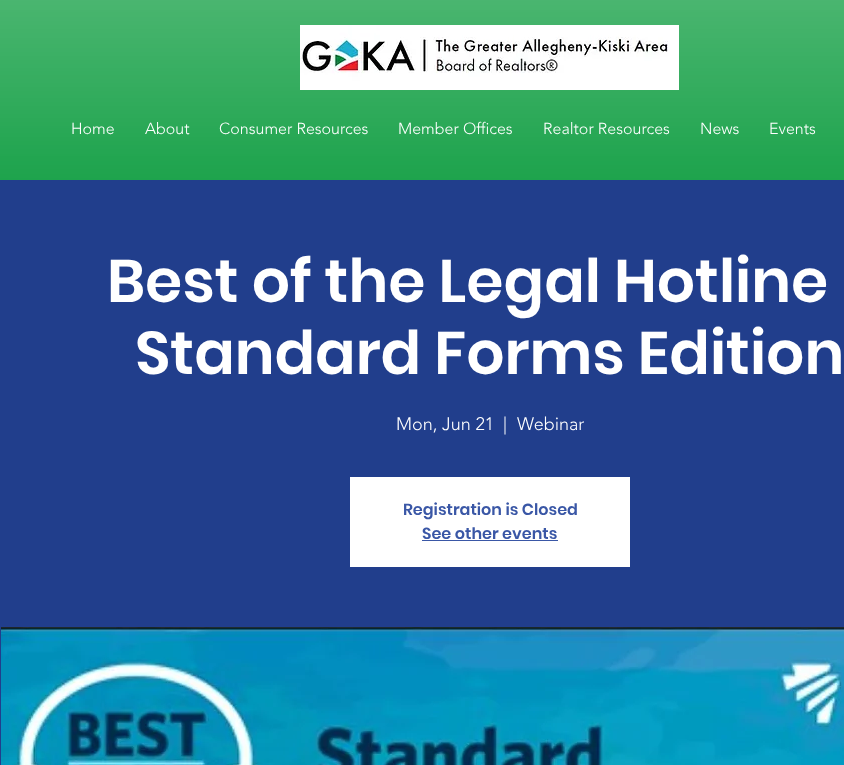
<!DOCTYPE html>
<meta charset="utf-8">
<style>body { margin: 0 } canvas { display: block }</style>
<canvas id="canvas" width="844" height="765"></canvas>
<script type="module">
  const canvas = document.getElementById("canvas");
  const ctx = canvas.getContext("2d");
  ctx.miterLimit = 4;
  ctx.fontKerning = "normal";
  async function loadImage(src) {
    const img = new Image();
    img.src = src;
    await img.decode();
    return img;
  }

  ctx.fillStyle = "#213e8c";
  ctx.fillRect(0, 0, 844, 765);
  ctx.fillStyle = "#0b9c3e";
  ctx.fillRect(0, 0, 844, 180);
  ctx.drawImage(await loadImage("img1.png"), 0, 0, 844, 180);
  ctx.drawImage(await loadImage("img2.png"), 300, 25, 379, 65);
  ctx.font = "300 16px 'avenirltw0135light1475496'";
  ctx.fillStyle = "#ffffff";
  ctx.fillText("Home", 71, 134);
  ctx.fillText("About", 145, 134);
  ctx.fillText("Consumer Resources", 219, 134);
  ctx.fillText("Member Offices", 398, 134);
  ctx.fillText("Realtor Resources", 543, 134);
  ctx.fillText("News", 700, 134);
  ctx.fillText("Events", 769, 134);
  ctx.font = "600 60px Poppins";
  ctx.fillText("Best of the Legal Hotline", 107, 302);
  ctx.fillText("Standard Forms Edition", 135, 374);
  ctx.font = "300 18px 'avenirltw0135light1475496'";
  ctx.fillText("Mon, Jun 21", 396, 430);
  ctx.fillText("|", 503, 430);
  ctx.fillText("Webinar", 517, 430);
  ctx.fillRect(350, 477, 280, 90);
  ctx.font = "600 16px Poppins";
  ctx.fillStyle = "#3a57a6";
  ctx.fillText("Registration is Closed", 403, 515);
  ctx.fillText("See other events", 422, 539);
  ctx.fillRect(422, 540, 136, 1);
  ctx.drawImage(await loadImage("img3.png"), 1, 627, 843, 138);
</script>
